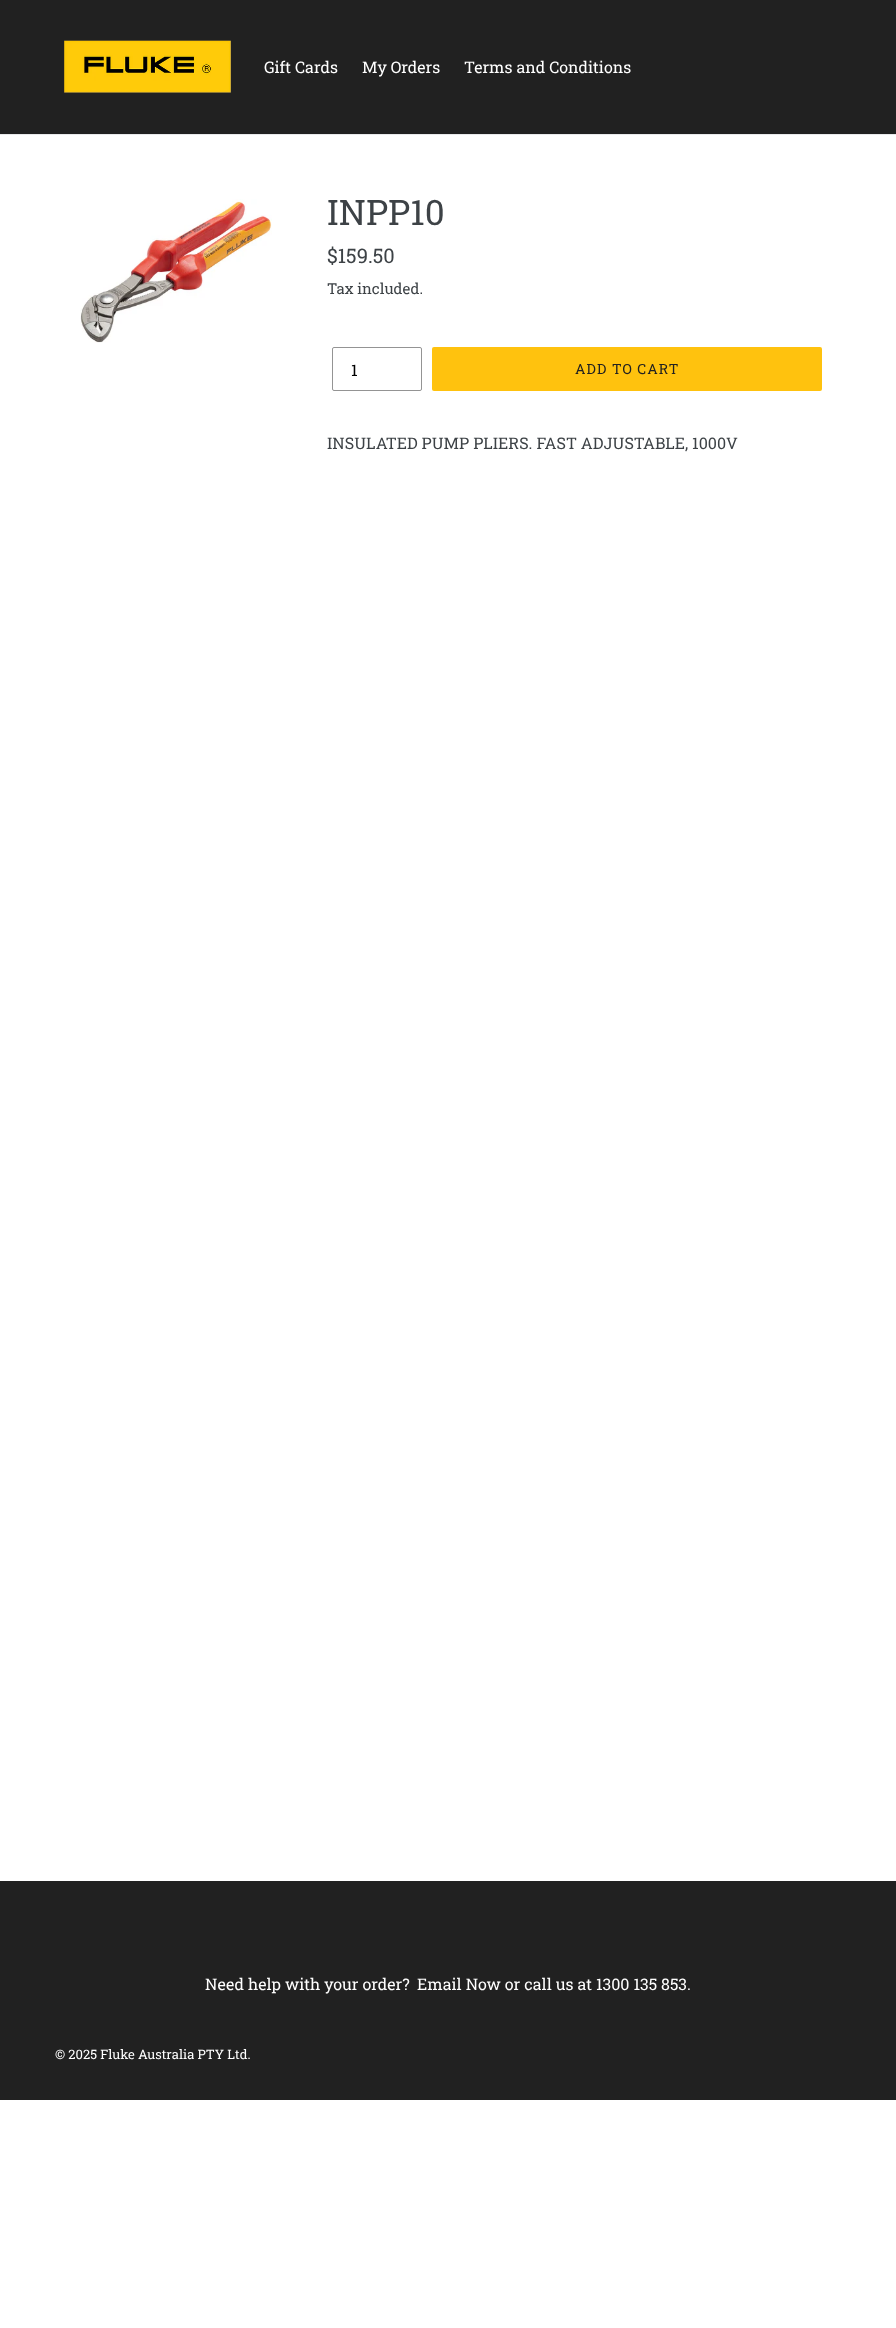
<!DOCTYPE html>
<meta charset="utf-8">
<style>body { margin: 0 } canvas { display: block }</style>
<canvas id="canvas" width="896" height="2328"></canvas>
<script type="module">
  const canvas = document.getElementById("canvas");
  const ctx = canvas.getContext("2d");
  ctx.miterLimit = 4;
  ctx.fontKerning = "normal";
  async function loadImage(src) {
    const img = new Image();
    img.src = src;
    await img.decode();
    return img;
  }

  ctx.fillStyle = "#ffffff";
  ctx.fillRect(0, 0, 896, 2328);
  ctx.fillStyle = "#212121";
  ctx.fillRect(0, 0, 896, 134);
  ctx.fillStyle = "#e8e9eb";
  ctx.fillRect(0, 134, 896, 1);
  ctx.drawImage(await loadImage("img1.png"), 64, 40, 167, 53);
  ctx.font = "16px Roboto Slab";
  ctx.fillStyle = "#ffffff";
  ctx.fillText("Gift Cards", 264, 73);
  ctx.fillText("My Orders", 362, 73);
  ctx.fillText("Terms and Conditions", 464, 73);
  ctx.drawImage(await loadImage("img2.png"), 80, 199, 192, 144);
  ctx.font = "35px Roboto Slab";
  ctx.fillStyle = "#3d4246";
  ctx.fillText("INPP10", 327, 225);
  ctx.font = "20px Roboto Slab";
  ctx.fillText("$159.50", 327, 263);
  ctx.font = "15px Roboto Slab";
  ctx.fillText("Tax included.", 327, 294);
  ctx.beginPath();
  ctx.roundRect(332.5, 347.5, 89, 43, 1.5);
  ctx.strokeStyle = "#949494";
  ctx.stroke();
  ctx.font = "16px Roboto Slab";
  ctx.fillStyle = "#000000";
  ctx.fillText("1", 351, 376);
  ctx.fillStyle = "#ffc20e";
  ctx.beginPath();
  ctx.roundRect(432, 347, 390, 44, 2);
  ctx.fill();
  ctx.letterSpacing = "1.1px";
  ctx.font = "14px Roboto Slab";
  ctx.fillStyle = "#212121";
  ctx.fillText("ADD TO CART", 575, 374);
  ctx.letterSpacing = "0px";
  ctx.font = "16px Roboto Slab";
  ctx.fillStyle = "#3d4246";
  ctx.fillText("INSULATED PUMP PLIERS. FAST ADJUSTABLE, 1000V", 327, 449);
  ctx.fillStyle = "#212121";
  ctx.fillRect(0, 1881, 896, 219);
  ctx.fillStyle = "#ffffff";
  ctx.fillText("Need help with your order?", 205, 1990);
  ctx.fillText("Email Now or call us at 1300 135 853.", 417, 1990);
  ctx.font = "13px Roboto Slab";
  ctx.fillText("© 2025 Fluke Australia PTY Ltd.", 55, 2059);
</script>
